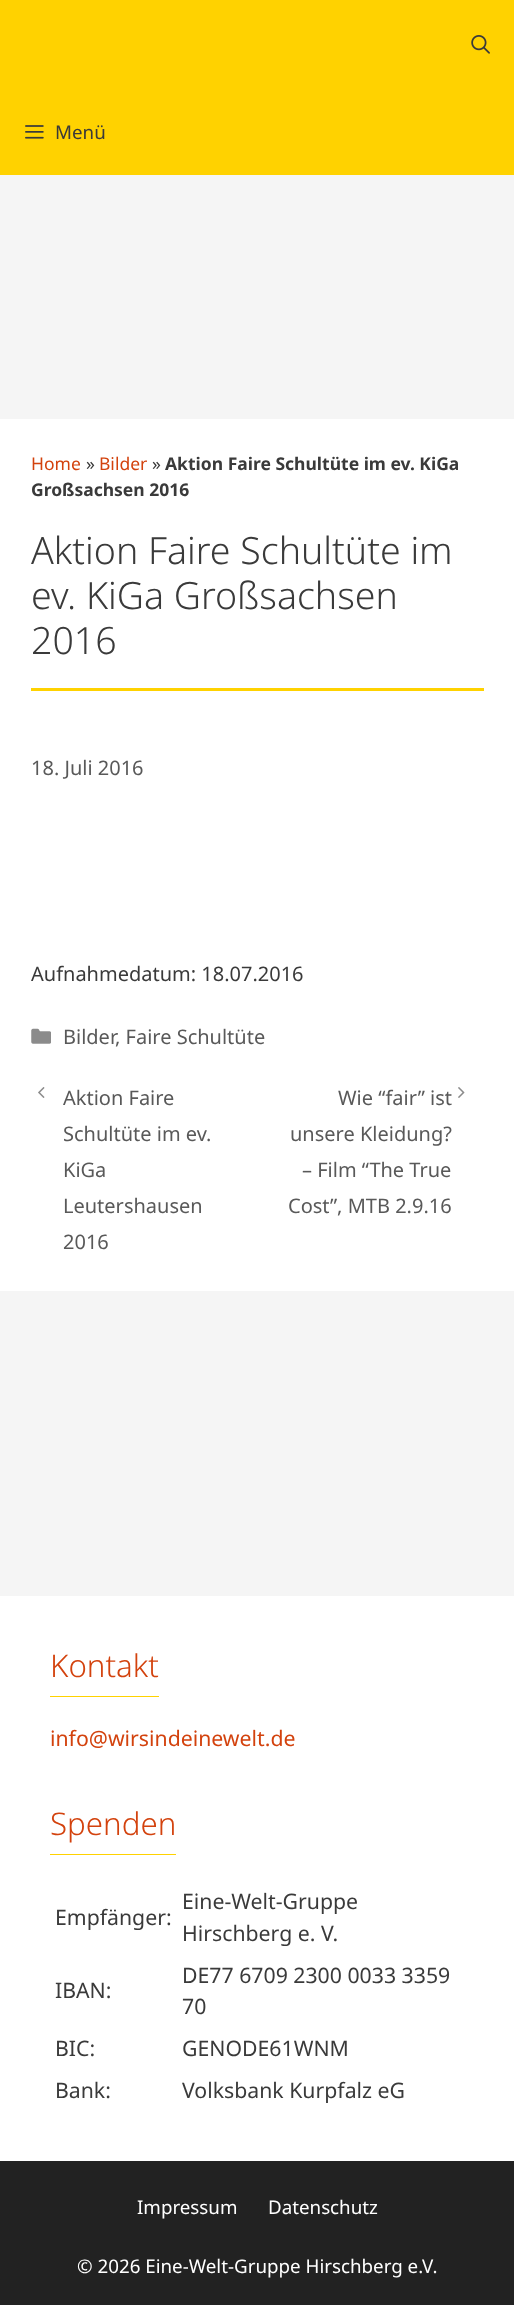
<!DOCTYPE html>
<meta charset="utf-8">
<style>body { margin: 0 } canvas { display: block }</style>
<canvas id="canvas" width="514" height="2305"></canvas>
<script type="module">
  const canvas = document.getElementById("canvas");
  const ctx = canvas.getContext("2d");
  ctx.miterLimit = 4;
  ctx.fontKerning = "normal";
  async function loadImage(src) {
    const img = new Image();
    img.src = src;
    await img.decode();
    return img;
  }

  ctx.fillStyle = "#f5f5f5";
  ctx.fillRect(0, 0, 514, 2305);
  ctx.fillStyle = "#ffd200";
  ctx.fillRect(0, 0, 514, 175);
  ctx.drawImage(await loadImage("img1.png"), 471, 35, 19, 19);
  ctx.drawImage(await loadImage("img2.png"), 25, 125, 19, 14);
  ctx.font = "18.75px Noto Sans";
  ctx.fillStyle = "#3a3a3a";
  ctx.fillText("Menü", 55, 139);
  ctx.fillStyle = "#ffffff";
  ctx.fillRect(0, 419, 514, 872);
  ctx.font = "17.5px Noto Sans";
  ctx.fillStyle = "#d3420d";
  ctx.fillText("Home", 31, 470);
  ctx.fillStyle = "#3a3a3a";
  ctx.fillText("»", 86, 470);
  ctx.fillStyle = "#d3420d";
  ctx.fillText("Bilder", 99, 470);
  ctx.fillStyle = "#3a3a3a";
  ctx.fillText("»", 152, 470);
  ctx.font = "bold 17.5px Noto Sans";
  ctx.fillText("Aktion Faire Schultüte im ev. KiGa", 165, 470);
  ctx.fillText("Großsachsen 2016", 31, 496);
  ctx.fillStyle = "#ffd200";
  ctx.fillRect(31, 688, 453, 3);
  ctx.font = "300 37.5px Noto Sans";
  ctx.fillStyle = "#3a3a3a";
  ctx.fillText("Aktion Faire Schultüte im", 31, 564);
  ctx.fillText("ev. KiGa Großsachsen", 31, 609);
  ctx.fillText("2016", 31, 654);
  ctx.font = "20px Noto Sans";
  ctx.fillStyle = "#595959";
  ctx.fillText("18. Juli 2016", 31, 775);
  ctx.fillStyle = "#3a3a3a";
  ctx.fillText("Aufnahmedatum: 18.07.2016", 31, 981);
  ctx.drawImage(await loadImage("img3.png"), 31, 1028, 20, 16);
  ctx.fillStyle = "#595959";
  ctx.fillText("Bilder", 63, 1044);
  ctx.fillText(", Faire Schultüte", 115, 1044);
  ctx.drawImage(await loadImage("img4.png"), 38, 1087, 7, 11);
  ctx.fillText("Aktion Faire", 63, 1105);
  ctx.fillText("Schultüte im ev.", 63, 1141);
  ctx.fillText("KiGa", 63, 1177);
  ctx.fillText("Leutershausen", 63, 1213);
  ctx.fillText("2016", 63, 1249);
  ctx.fillText("Wie “fair” ist", 338, 1105);
  ctx.fillText("unsere Kleidung?", 290, 1141);
  ctx.fillText("– Film “The True", 302, 1177);
  ctx.fillText("Cost”, MTB 2.9.16", 288, 1213);
  ctx.drawImage(await loadImage("img5.png"), 458, 1087, 7, 11);
  ctx.fillStyle = "#ffffff";
  ctx.fillRect(0, 1596, 514, 565);
  ctx.fillStyle = "#ffd200";
  ctx.fillRect(50, 1696, 109, 1);
  ctx.font = "300 31.25px Noto Sans";
  ctx.fillStyle = "#d3420d";
  ctx.fillText("Kontakt", 50, 1677);
  ctx.font = "21.25px Noto Sans";
  ctx.fillText("info@wirsindeinewelt.de", 50, 1746);
  ctx.fillStyle = "#ffd200";
  ctx.fillRect(50, 1854, 126, 1);
  ctx.font = "300 31.25px Noto Sans";
  ctx.fillStyle = "#d3420d";
  ctx.fillText("Spenden", 50, 1835);
  ctx.font = "21.25px Noto Sans";
  ctx.fillStyle = "#3a3a3a";
  ctx.fillText("Empfänger:", 55, 1925);
  ctx.fillText("Eine-Welt-Gruppe", 182, 1909);
  ctx.fillText("Hirschberg e. V.", 182, 1941);
  ctx.fillText("IBAN:", 55, 1998);
  ctx.fillText("DE77 6709 2300 0033 3359", 182, 1983);
  ctx.fillText("70", 182, 2014);
  ctx.fillText("BIC:", 55, 2056);
  ctx.fillText("GENODE61WNM", 182, 2056);
  ctx.fillText("Bank:", 55, 2098);
  ctx.fillText("Volksbank Kurpfalz eG", 182, 2098);
  ctx.fillStyle = "#222222";
  ctx.fillRect(0, 2161, 514, 144);
  ctx.font = "18.75px Noto Sans";
  ctx.fillStyle = "#ffffff";
  ctx.fillText("Impressum", 137, 2214);
  ctx.fillText("Datenschutz", 268, 2214);
  ctx.fillText("© 2026 Eine-Welt-Gruppe Hirschberg e.V.", 77, 2273);
</script>
